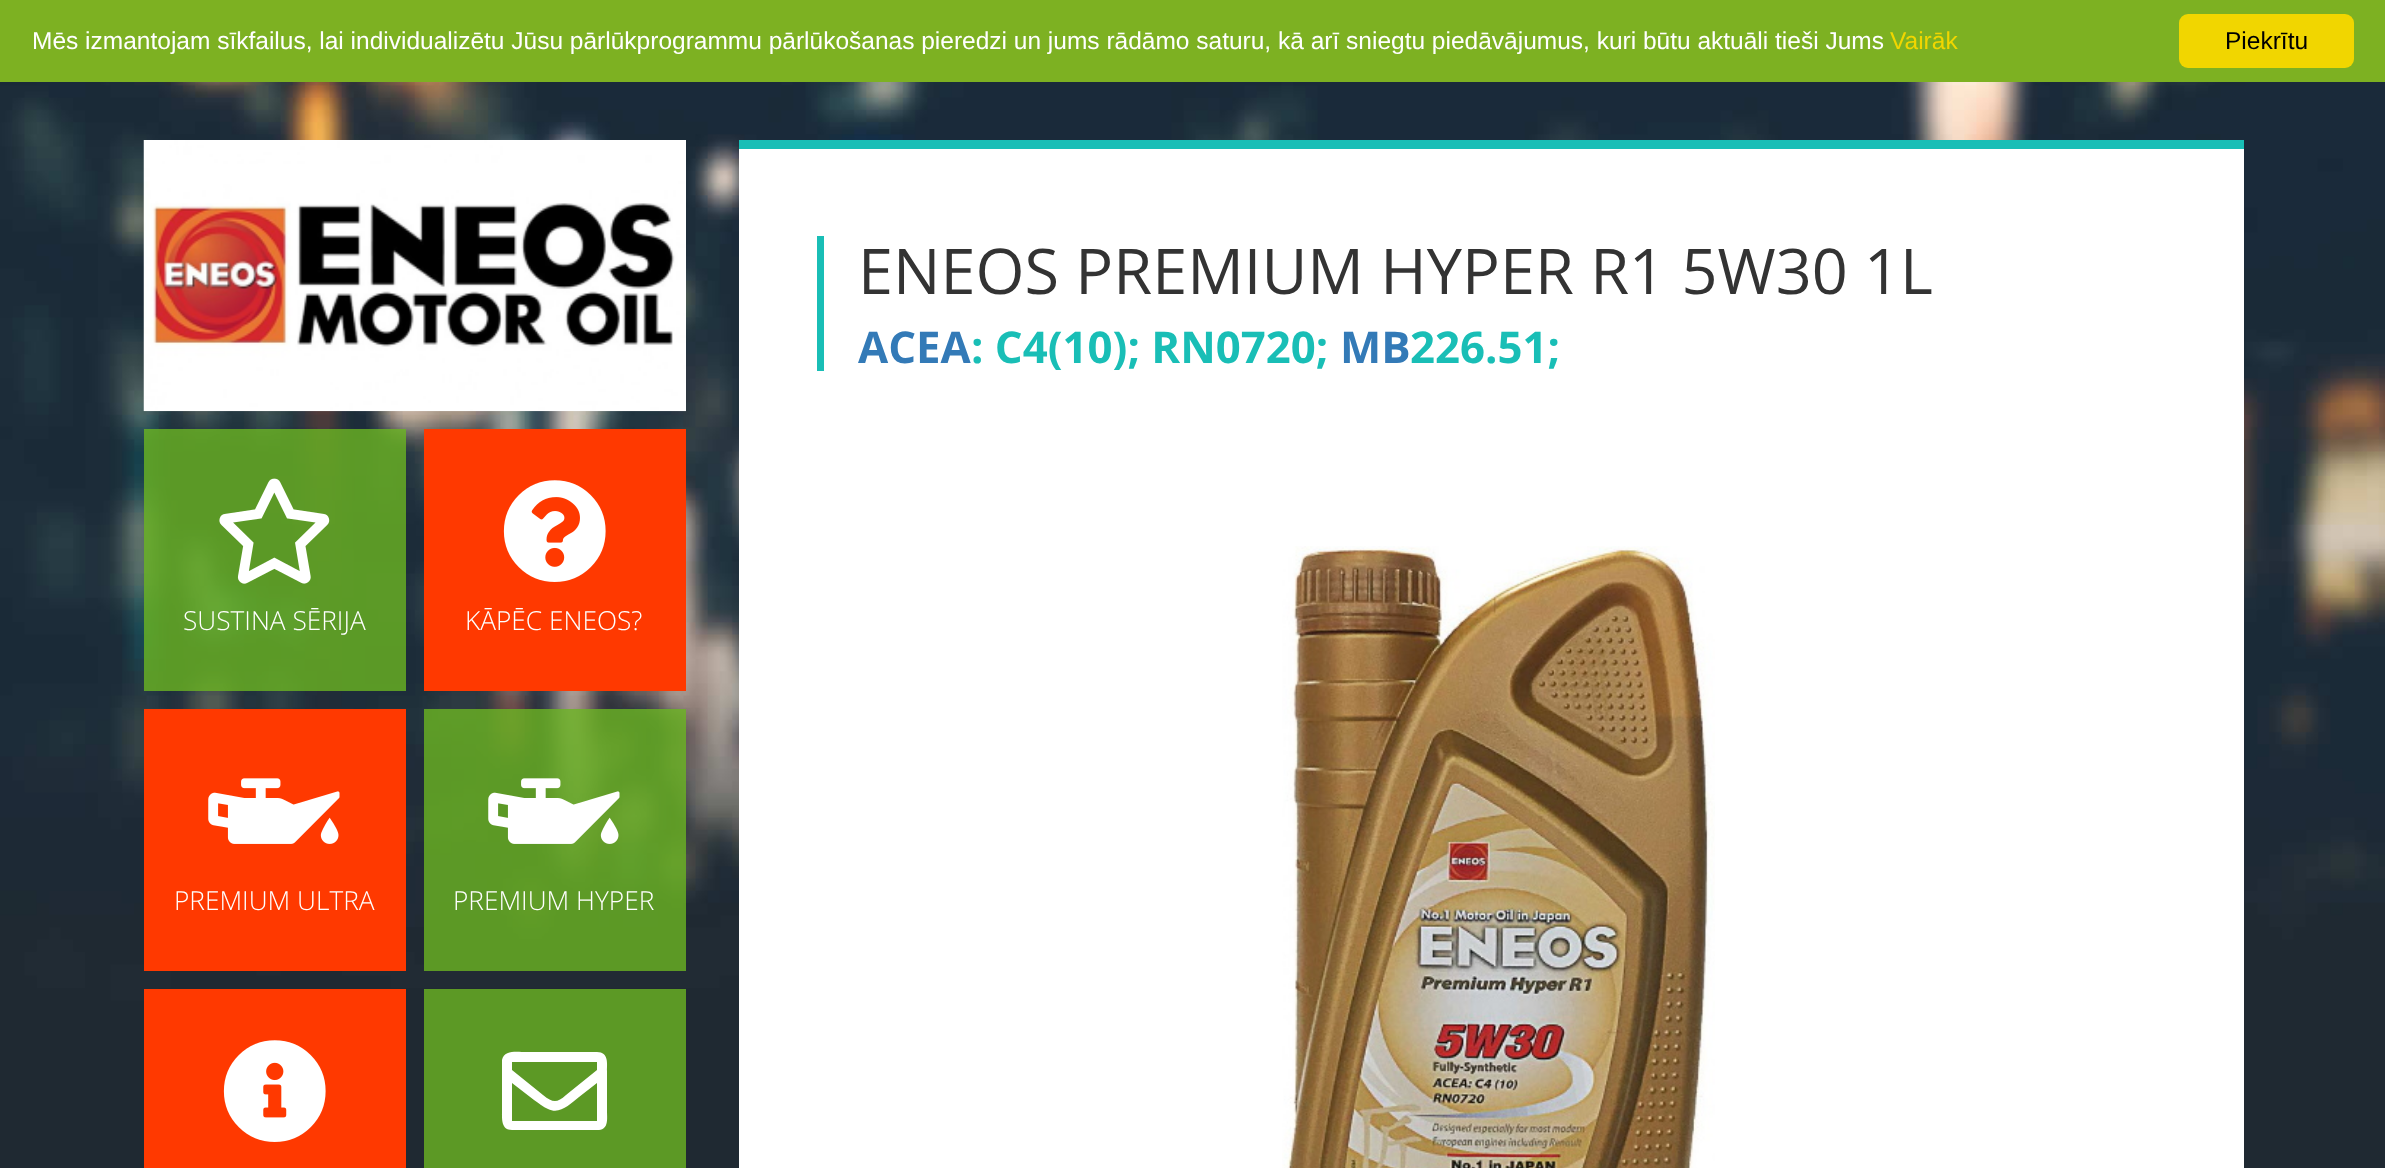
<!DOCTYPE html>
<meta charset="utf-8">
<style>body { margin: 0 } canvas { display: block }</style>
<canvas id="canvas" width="2385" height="1168"></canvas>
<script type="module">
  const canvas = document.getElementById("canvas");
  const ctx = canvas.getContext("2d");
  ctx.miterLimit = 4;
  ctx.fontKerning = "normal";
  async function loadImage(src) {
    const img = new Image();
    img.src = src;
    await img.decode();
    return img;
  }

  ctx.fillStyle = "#ffffff";
  ctx.fillRect(0, 0, 2385, 1168);
  ctx.fillStyle = "#7db122";
  ctx.fillRect(0, 0, 2385, 82);
  ctx.font = "24.5px Liberation Sans";
  ctx.fillStyle = "#ffffff";
  ctx.fillText("Mēs izmantojam sīkfailus, lai individualizētu Jūsu pārlūkprogrammu pārlūkošanas pieredzi un jums rādāmo saturu, kā arī sniegtu piedāvājumus, kuri būtu aktuāli tieši Jums", 32, 49);
  ctx.fillStyle = "#f1d600";
  ctx.fillText("Vairāk", 1890, 49);
  ctx.beginPath();
  ctx.roundRect(2179, 14, 175, 54, 9);
  ctx.fill();
  ctx.fillStyle = "#000000";
  ctx.fillText("Piekrītu", 2225, 49);
  ctx.drawImage(await loadImage("img1.png"), 0, 82, 2385, 1086);
  ctx.fillStyle = "#ffffff";
  ctx.fillRect(739, 149, 1505, 1019);
  ctx.fillStyle = "#19beb6";
  ctx.fillRect(739, 140, 1505, 9);
  ctx.fillRect(817, 236, 7, 135);
  ctx.font = "63px Open Sans";
  ctx.fillStyle = "#333333";
  ctx.fillText("ENEOS PREMIUM HYPER R1 5W30 1L", 858, 294);
  ctx.font = "bold 43.75px Open Sans";
  ctx.fillStyle = "#337ab7";
  ctx.fillText("ACEA", 858, 363);
  ctx.fillStyle = "#19beb6";
  ctx.fillText(": C4(10); RN0720;", 971, 363);
  ctx.fillStyle = "#337ab7";
  ctx.fillText("MB", 1340, 363);
  ctx.fillStyle = "#19beb6";
  ctx.fillText("226.51;", 1410, 363);
  ctx.drawImage(await loadImage("img2.png"), 1282, 546, 433, 622);
  ctx.drawImage(await loadImage("img3.png"), 143, 140, 543, 272);
  ctx.fillStyle = "rgba(107, 181, 34, 0.8)";
  ctx.fillRect(144, 429, 262, 262);
  ctx.drawImage(await loadImage("img4.png"), 219, 478, 111, 106);
  ctx.font = "300 26.25px Open Sans";
  ctx.fillStyle = "#ffffff";
  ctx.fillText("SUSTINA SĒRIJA", 183, 630);
  ctx.fillStyle = "#ff3900";
  ctx.fillRect(424, 429, 262, 262);
  ctx.drawImage(await loadImage("img5.png"), 503, 480, 103, 102);
  ctx.fillStyle = "#ffffff";
  ctx.fillText("KĀPĒC ENEOS?", 465, 630);
  ctx.fillStyle = "#ff3900";
  ctx.fillRect(144, 709, 262, 262);
  ctx.drawImage(await loadImage("img6.png"), 208, 778, 132, 66);
  ctx.fillStyle = "#ffffff";
  ctx.fillText("PREMIUM ULTRA", 174, 910);
  ctx.fillStyle = "rgba(107, 181, 34, 0.8)";
  ctx.fillRect(424, 709, 262, 262);
  ctx.drawImage(await loadImage("img7.png"), 488, 778, 132, 66);
  ctx.fillStyle = "#ffffff";
  ctx.fillText("PREMIUM HYPER", 453, 910);
  ctx.fillStyle = "#ff3900";
  ctx.fillRect(144, 989, 262, 179);
  ctx.drawImage(await loadImage("img8.png"), 223, 1040, 103, 102);
  ctx.fillStyle = "#5c9925";
  ctx.fillRect(424, 989, 262, 179);
  ctx.fillStyle = "#ffffff";
  ctx.beginPath();
  ctx.moveTo(597, 1052);
  ctx.bezierCurveTo(609, 1052, 607, 1064, 607, 1071);
  ctx.lineTo(607, 1111);
  ctx.bezierCurveTo(607, 1118, 609, 1129, 599, 1130);
  ctx.lineTo(512, 1130);
  ctx.bezierCurveTo(501, 1130, 502, 1119, 502, 1111);
  ctx.lineTo(502, 1060);
  ctx.bezierCurveTo(504, 1049, 519, 1052, 526, 1052);
  ctx.closePath();
  ctx.moveTo(597, 1062);
  ctx.lineTo(512, 1062);
  ctx.lineTo(512, 1070);
  ctx.lineTo(543, 1095);
  ctx.bezierCurveTo(553, 1103, 557, 1103, 566, 1095);
  ctx.lineTo(597, 1070);
  ctx.closePath();
  ctx.moveTo(512, 1121);
  ctx.lineTo(597, 1121);
  ctx.lineTo(597, 1083);
  ctx.lineTo(579, 1097);
  ctx.bezierCurveTo(570, 1104, 560, 1115, 548, 1109);
  ctx.bezierCurveTo(543, 1107, 539, 1103, 534, 1100);
  ctx.lineTo(512, 1083);
  ctx.closePath();
  ctx.fill();
</script>
